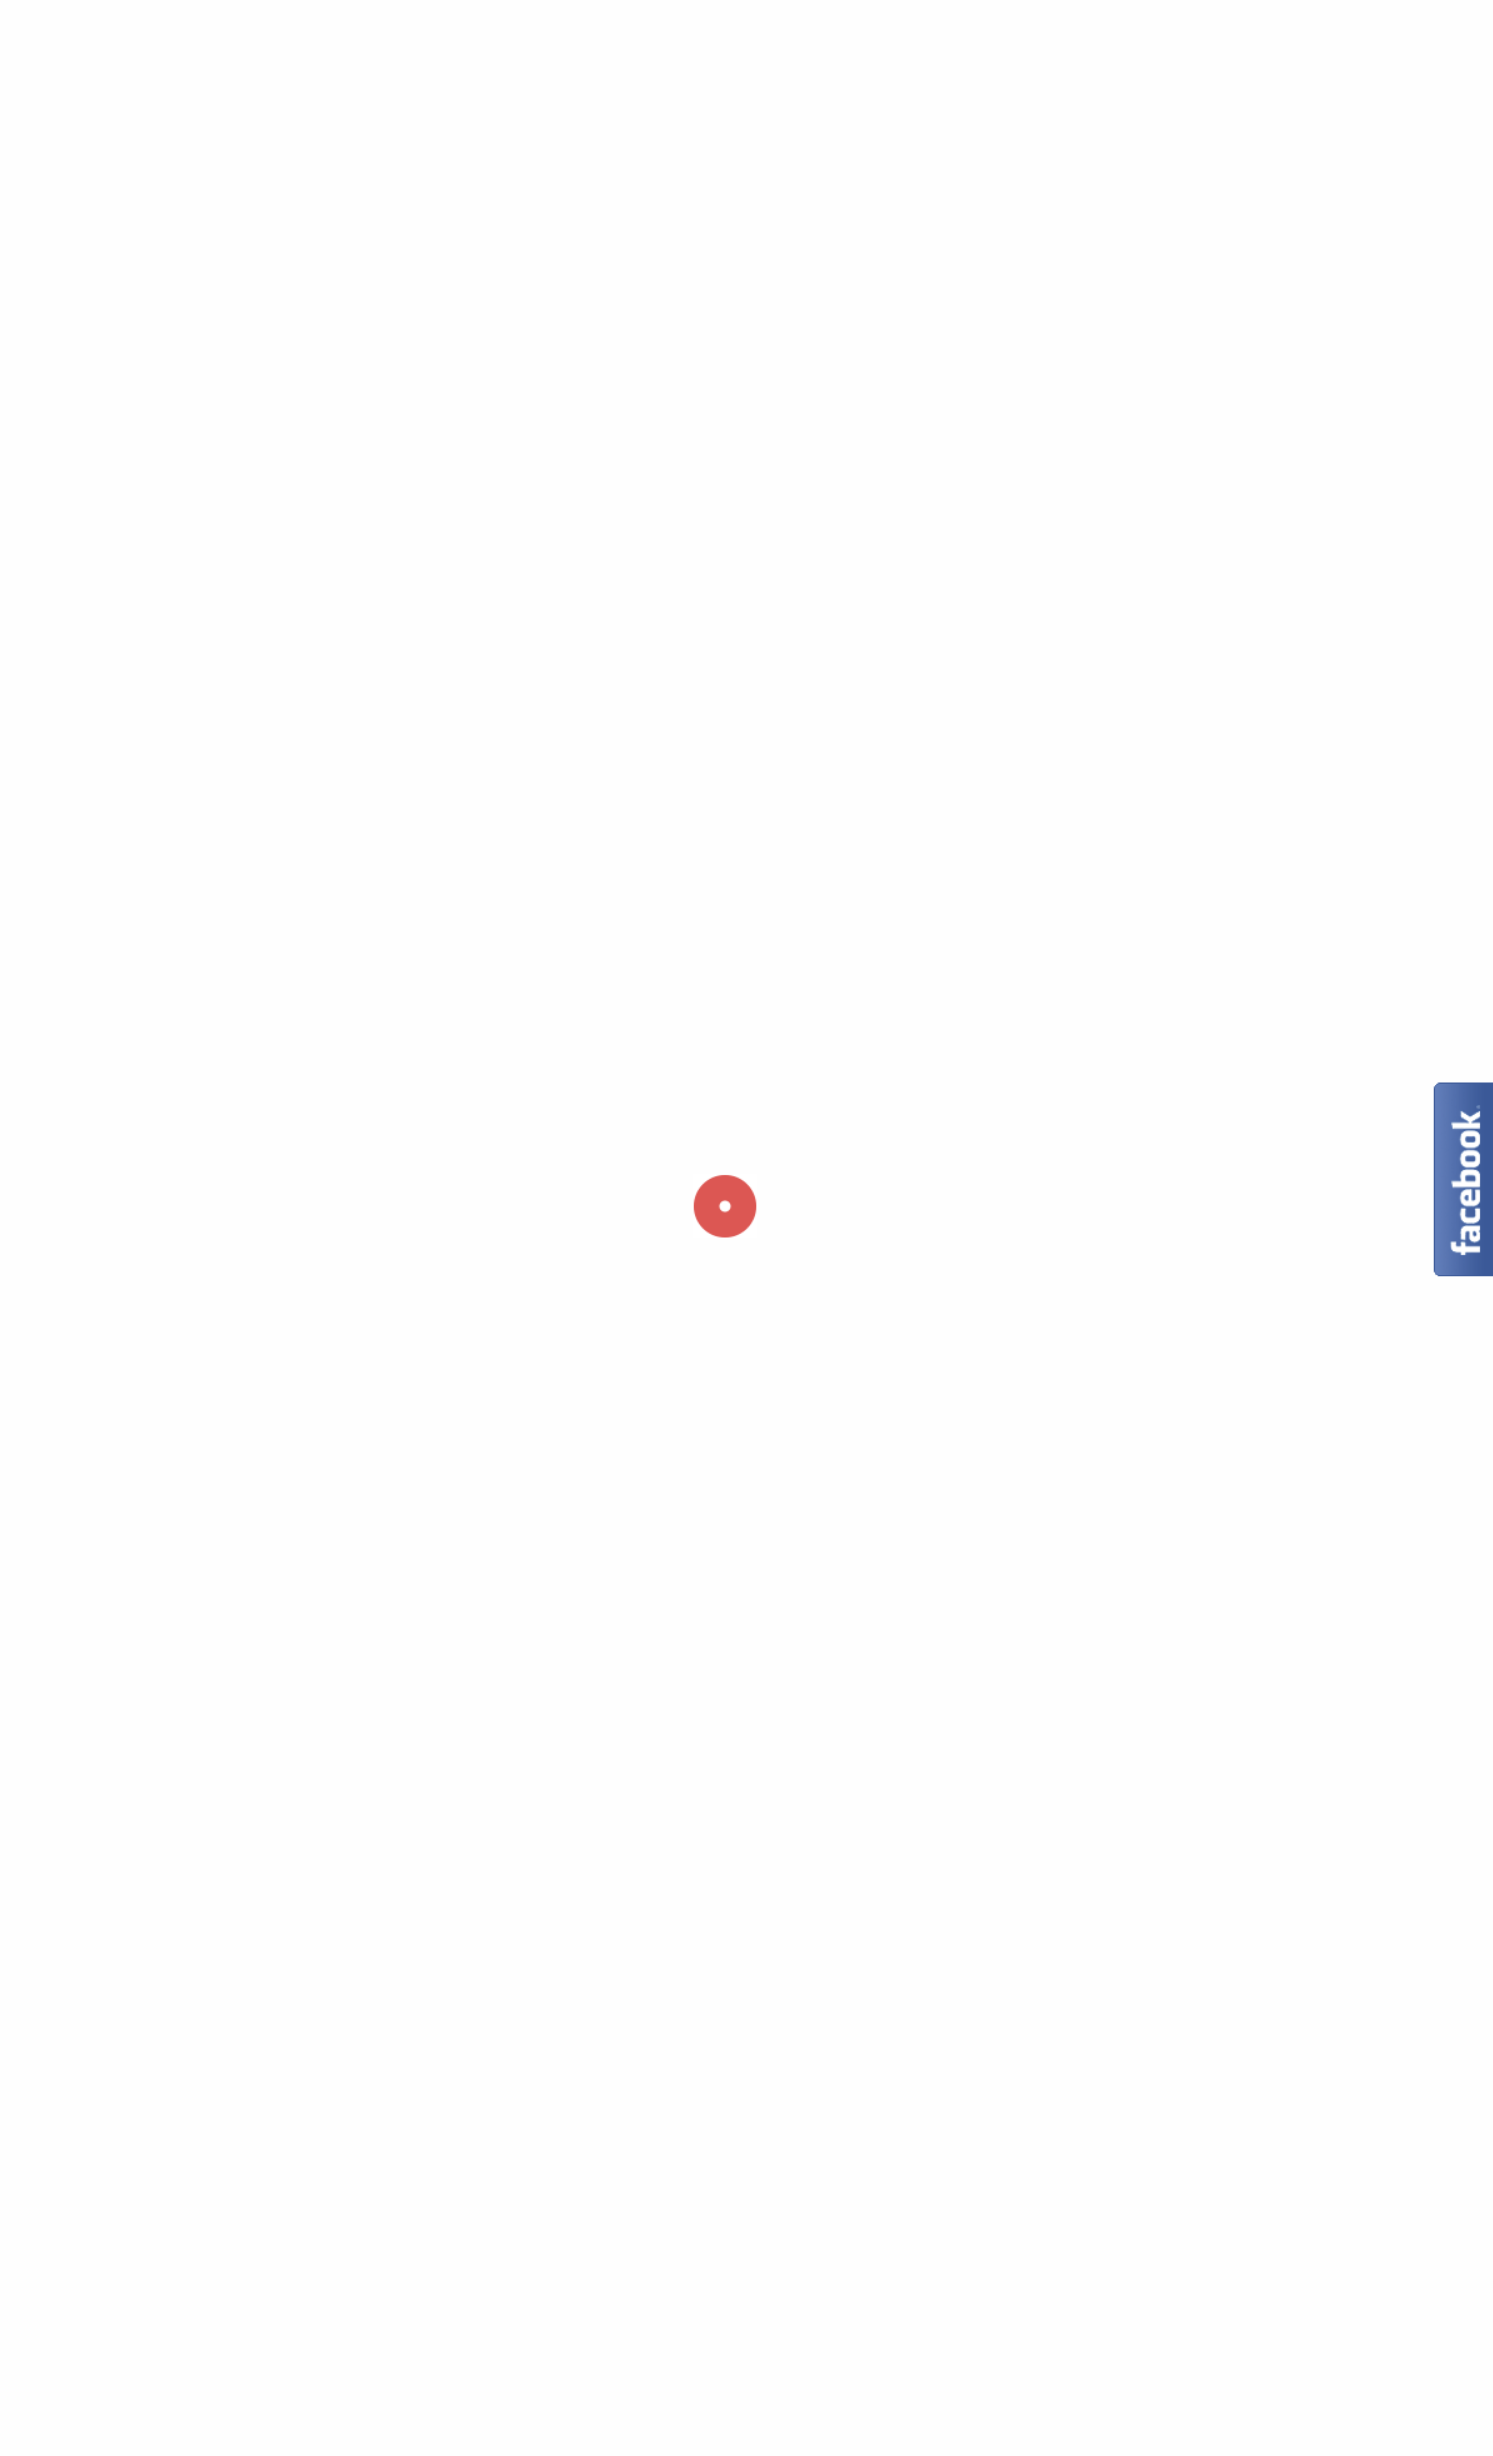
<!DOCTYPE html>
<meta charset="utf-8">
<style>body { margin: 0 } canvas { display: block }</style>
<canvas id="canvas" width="1493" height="2456"></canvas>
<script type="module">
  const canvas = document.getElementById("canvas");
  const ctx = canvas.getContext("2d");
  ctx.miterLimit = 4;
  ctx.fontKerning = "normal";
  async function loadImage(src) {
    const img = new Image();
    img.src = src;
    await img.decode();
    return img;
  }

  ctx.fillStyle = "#fefefe";
  ctx.fillRect(0, 0, 1493, 2456);
  ctx.drawImage(await loadImage("img1.png"), 693, 1174, 64, 64);
  ctx.drawImage(await loadImage("img2.png"), 1433, 1082, 60, 195);
</script>
